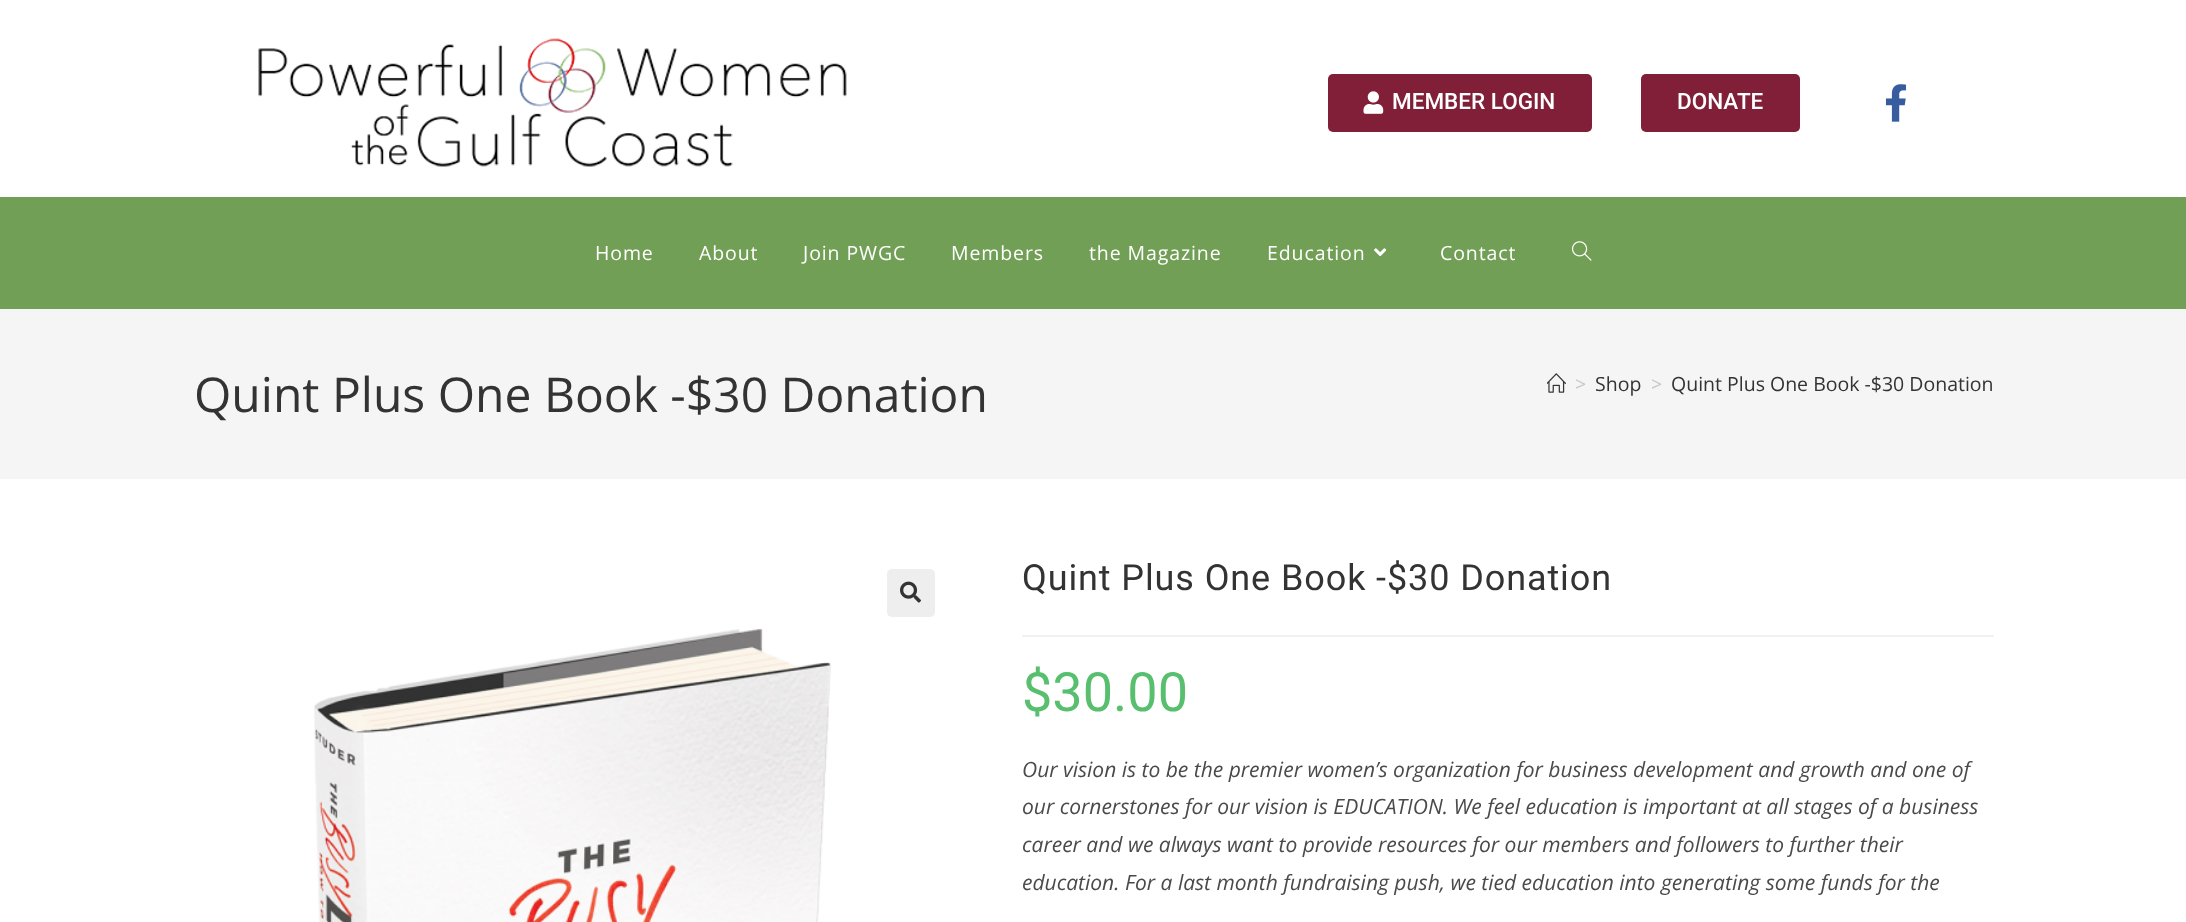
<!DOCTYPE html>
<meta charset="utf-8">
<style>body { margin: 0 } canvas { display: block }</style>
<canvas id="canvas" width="2186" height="922"></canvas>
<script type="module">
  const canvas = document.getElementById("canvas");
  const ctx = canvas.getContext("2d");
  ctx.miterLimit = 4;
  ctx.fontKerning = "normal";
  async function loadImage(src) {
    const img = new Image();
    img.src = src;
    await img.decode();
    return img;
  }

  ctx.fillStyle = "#ffffff";
  ctx.fillRect(0, 0, 2186, 922);
  ctx.drawImage(await loadImage("img1.png"), 258, 38, 589, 129);
  ctx.fillStyle = "#811f39";
  ctx.beginPath();
  ctx.roundRect(1328, 74, 264, 58, 5);
  ctx.fill();
  ctx.drawImage(await loadImage("img2.png"), 1363, 91, 21, 23);
  ctx.font = "500 22.5px Roboto";
  ctx.fillStyle = "#ffffff";
  ctx.fillText("MEMBER LOGIN", 1392, 109);
  ctx.fillStyle = "#811f39";
  ctx.beginPath();
  ctx.roundRect(1641, 74, 159, 58, 5);
  ctx.fill();
  ctx.fillStyle = "#ffffff";
  ctx.fillText("DONATE", 1677, 109);
  ctx.drawImage(await loadImage("img3.png"), 1885, 84, 22, 38);
  ctx.fillStyle = "#729f56";
  ctx.fillRect(0, 197, 2186, 112);
  ctx.letterSpacing = "0.9px";
  ctx.font = "19.5px Open Sans";
  ctx.fillStyle = "#ffffff";
  ctx.fillText("Home", 595, 260);
  ctx.fillText("About", 699, 260);
  ctx.fillText("Join PWGC", 803, 260);
  ctx.fillText("Members", 951, 260);
  ctx.fillText("the Magazine", 1089, 260);
  ctx.fillText("Education", 1267, 260);
  ctx.drawImage(await loadImage("img4.png"), 1374, 248, 13, 8);
  ctx.fillText("Contact", 1440, 260);
  ctx.drawImage(await loadImage("img5.png"), 1572, 241, 20, 20);
  ctx.fillStyle = "#f5f5f5";
  ctx.fillRect(0, 309, 2186, 170);
  ctx.letterSpacing = "0px";
  ctx.font = "48px Open Sans";
  ctx.fillStyle = "#333333";
  ctx.fillText("Quint Plus One Book -$30 Donation", 194, 412);
  ctx.drawImage(await loadImage("img6.png"), 1547, 373, 19, 20);
  ctx.font = "19.5px Open Sans";
  ctx.fillStyle = "#c6c6c6";
  ctx.fillText(">", 1575, 391);
  ctx.fillStyle = "#333333";
  ctx.fillText("Shop", 1595, 391);
  ctx.fillStyle = "#c6c6c6";
  ctx.fillText(">", 1651, 391);
  ctx.fillStyle = "#333333";
  ctx.fillText("Quint Plus One Book -$30 Donation", 1671, 391);
  ctx.fillStyle = "#eeeeee";
  ctx.beginPath();
  ctx.roundRect(887, 569, 48, 48, 5);
  ctx.fill();
  ctx.drawImage(await loadImage("img7.png"), 900, 581, 21, 22);
  ctx.drawImage(await loadImage("img8.png"), 314, 629, 517, 293);
  ctx.fillStyle = "#f1f1f1";
  ctx.fillRect(1022, 635, 972, 2);
  ctx.letterSpacing = "0.9px";
  ctx.font = "36px Roboto";
  ctx.fillStyle = "#333333";
  ctx.fillText("Quint Plus One Book -$30 Donation", 1022, 590);
  ctx.letterSpacing = "0px";
  ctx.font = "54px Roboto";
  ctx.fillStyle = "#57bf6d";
  ctx.fillText("$30.00", 1022, 711);
  ctx.font = "italic 21px Open Sans";
  ctx.fillStyle = "#4a4a4a";
  ctx.fillText("Our vision is to be the premier women’s organization for business development and growth and one of", 1022, 777);
  ctx.fillText("our cornerstones for our vision is EDUCATION. We feel education is important at all stages of a business", 1022, 814);
  ctx.fillText("career and we always want to provide resources for our members and followers to further their", 1022, 852);
  ctx.fillText("education. For a last month fundraising push, we tied education into generating some funds for the", 1022, 890);
</script>
